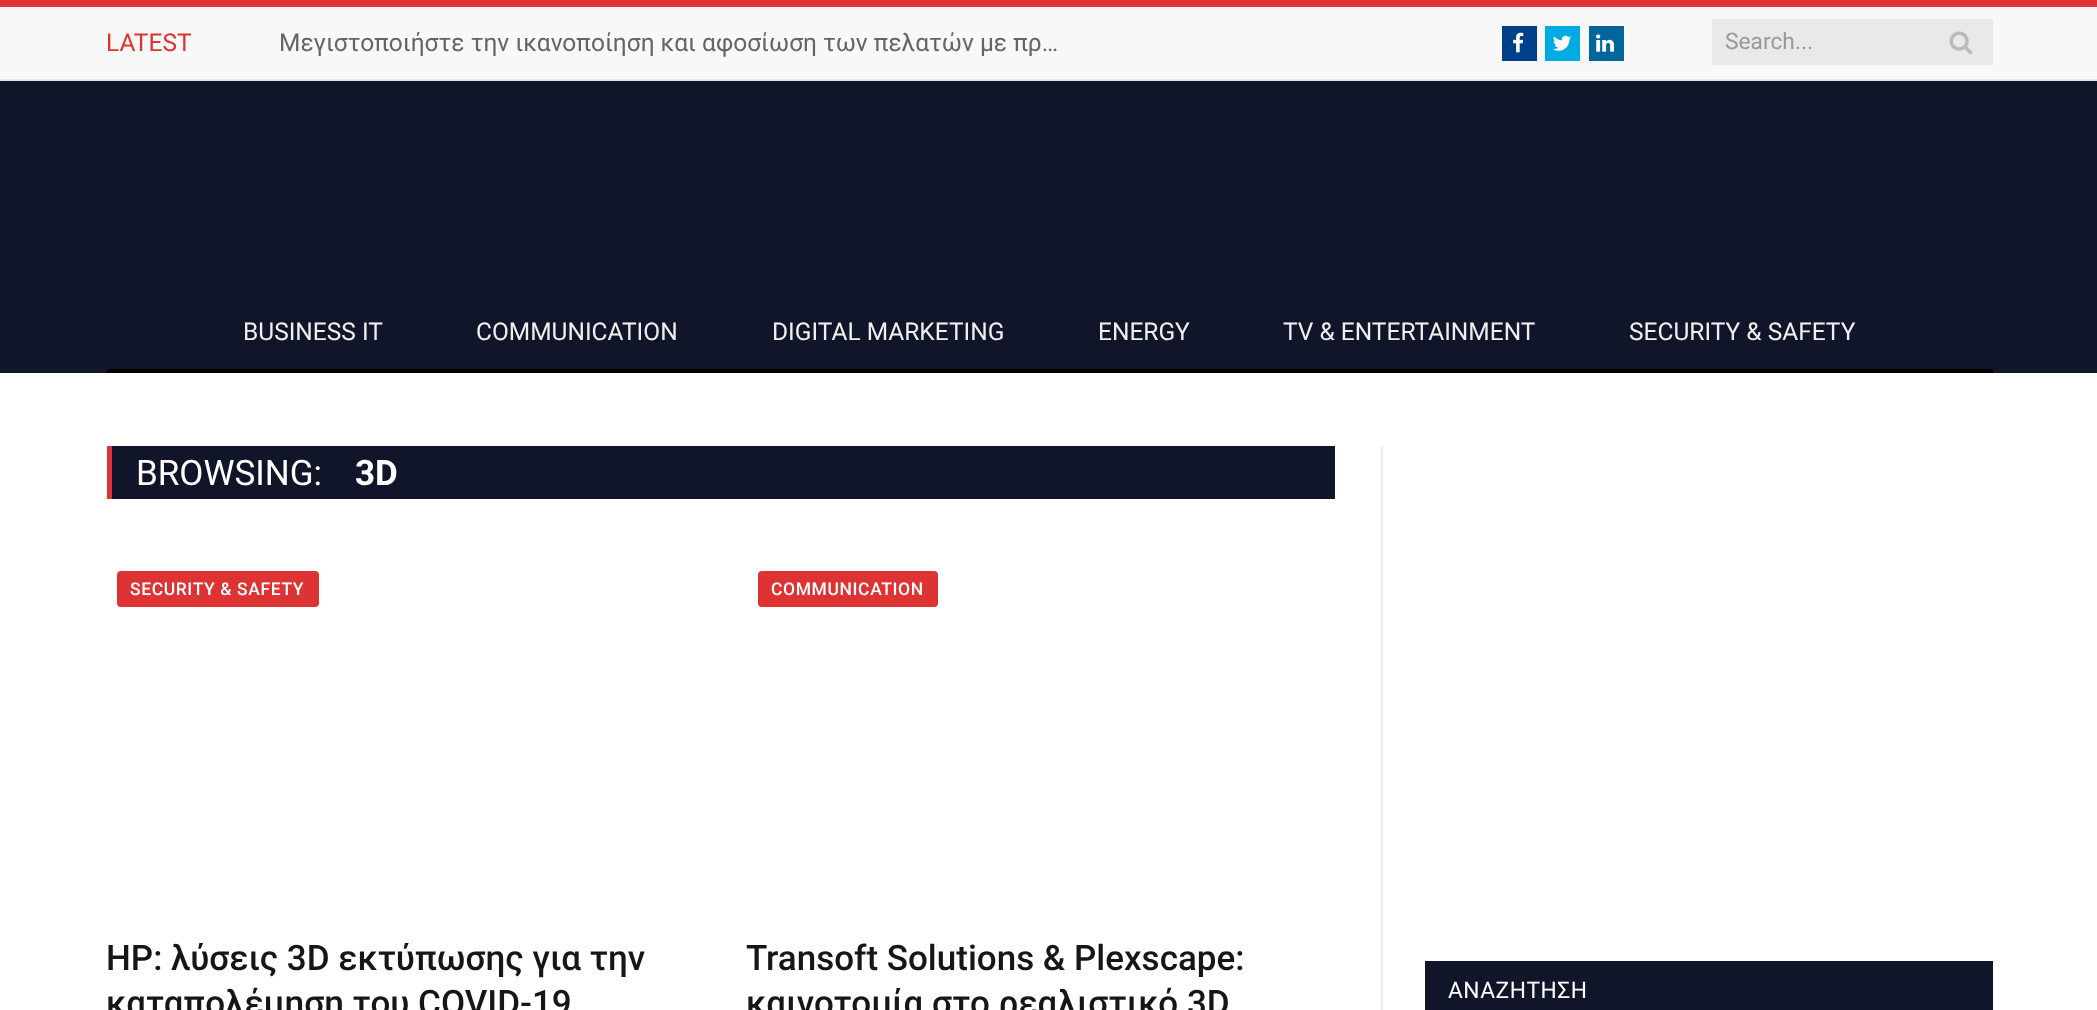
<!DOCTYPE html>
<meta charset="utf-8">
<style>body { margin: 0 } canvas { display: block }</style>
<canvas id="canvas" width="2097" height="1010"></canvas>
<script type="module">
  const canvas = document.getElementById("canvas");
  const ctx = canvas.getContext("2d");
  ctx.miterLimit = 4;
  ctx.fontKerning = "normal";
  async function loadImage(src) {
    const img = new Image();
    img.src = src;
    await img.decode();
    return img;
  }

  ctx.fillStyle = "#ffffff";
  ctx.fillRect(0, 0, 2097, 1010);
  ctx.fillStyle = "#f8f8f8";
  ctx.fillRect(0, 7, 2097, 72);
  ctx.fillStyle = "#dd3333";
  ctx.fillRect(0, 0, 2097, 7);
  ctx.fillStyle = "#e7e7e7";
  ctx.fillRect(0, 79, 2097, 2);
  ctx.font = "24.5px Roboto";
  ctx.fillStyle = "#dd3333";
  ctx.fillText("LATEST", 106, 51);
  ctx.fillStyle = "#656565";
  ctx.fillText("Μεγιστοποιήστε την ικανοποίηση και αφοσίωση των πελατών με πρ…", 279, 51);
  ctx.fillStyle = "#004088";
  ctx.fillRect(1502, 26, 35, 35);
  ctx.drawImage(await loadImage("img1.png"), 1513, 32, 11, 21);
  ctx.fillStyle = "#00abe3";
  ctx.fillRect(1545, 26, 35, 35);
  ctx.drawImage(await loadImage("img2.png"), 1553, 35, 19, 16);
  ctx.fillStyle = "#01669c";
  ctx.fillRect(1589, 26, 35, 35);
  ctx.drawImage(await loadImage("img3.png"), 1596, 34, 18, 18);
  ctx.fillStyle = "#e9e9e9";
  ctx.fillRect(1712, 19, 281, 46);
  ctx.font = "22.75px Roboto";
  ctx.fillStyle = "#999999";
  ctx.fillText("Search...", 1725, 49);
  ctx.drawImage(await loadImage("img4.png"), 1949, 31, 24, 24);
  ctx.fillStyle = "#101529";
  ctx.fillRect(0, 81, 2097, 292);
  ctx.fillStyle = "#000000";
  ctx.fillRect(107, 369, 1886, 4);
  ctx.font = "24.5px Roboto";
  ctx.fillStyle = "#efefef";
  ctx.fillText("BUSINESS IT", 243, 340);
  ctx.fillText("COMMUNICATION", 476, 340);
  ctx.fillText("DIGITAL MARKETING", 772, 340);
  ctx.fillText("ENERGY", 1098, 340);
  ctx.fillText("TV & ENTERTAINMENT", 1283, 340);
  ctx.fillText("SECURITY & SAFETY", 1629, 340);
  ctx.fillStyle = "#101529";
  ctx.fillRect(112, 446, 1223, 53);
  ctx.fillStyle = "#dd3333";
  ctx.fillRect(107, 446, 5, 53);
  ctx.font = "35px Roboto";
  ctx.fillStyle = "#ffffff";
  ctx.fillText("BROWSING:", 136, 485);
  ctx.font = "bold 35px Roboto";
  ctx.fillText("3D", 355, 485);
  ctx.fillStyle = "#dd3333";
  ctx.beginPath();
  ctx.roundRect(117, 571, 202, 36, 4);
  ctx.fill();
  ctx.letterSpacing = "0.6px";
  ctx.font = "500 17.5px Roboto";
  ctx.fillStyle = "#ffffff";
  ctx.fillText("SECURITY & SAFETY", 130, 595);
  ctx.letterSpacing = "0px";
  ctx.font = "500 35px Roboto";
  ctx.fillStyle = "#161616";
  ctx.fillText("HP: λύσεις 3D εκτύπωσης για την", 106, 970);
  ctx.fillText("καταπολέμηση του COVID-19", 106, 1015);
  ctx.fillStyle = "#dd3333";
  ctx.beginPath();
  ctx.roundRect(758, 571, 180, 36, 4);
  ctx.fill();
  ctx.letterSpacing = "0.6px";
  ctx.font = "500 17.5px Roboto";
  ctx.fillStyle = "#ffffff";
  ctx.fillText("COMMUNICATION", 771, 595);
  ctx.letterSpacing = "0px";
  ctx.font = "500 35px Roboto";
  ctx.fillStyle = "#161616";
  ctx.fillText("Transoft Solutions & Plexscape:", 746, 970);
  ctx.fillText("καινοτομία στο ρεαλιστικό 3D", 746, 1015);
  ctx.fillStyle = "#eeeeee";
  ctx.fillRect(1381, 446, 2, 564);
  ctx.fillStyle = "#101529";
  ctx.fillRect(1425, 961, 568, 49);
  ctx.letterSpacing = "0.5px";
  ctx.font = "22.75px Roboto";
  ctx.fillStyle = "#ffffff";
  ctx.fillText("ΑΝΑΖΗΤΗΣΗ", 1448, 998);
</script>
